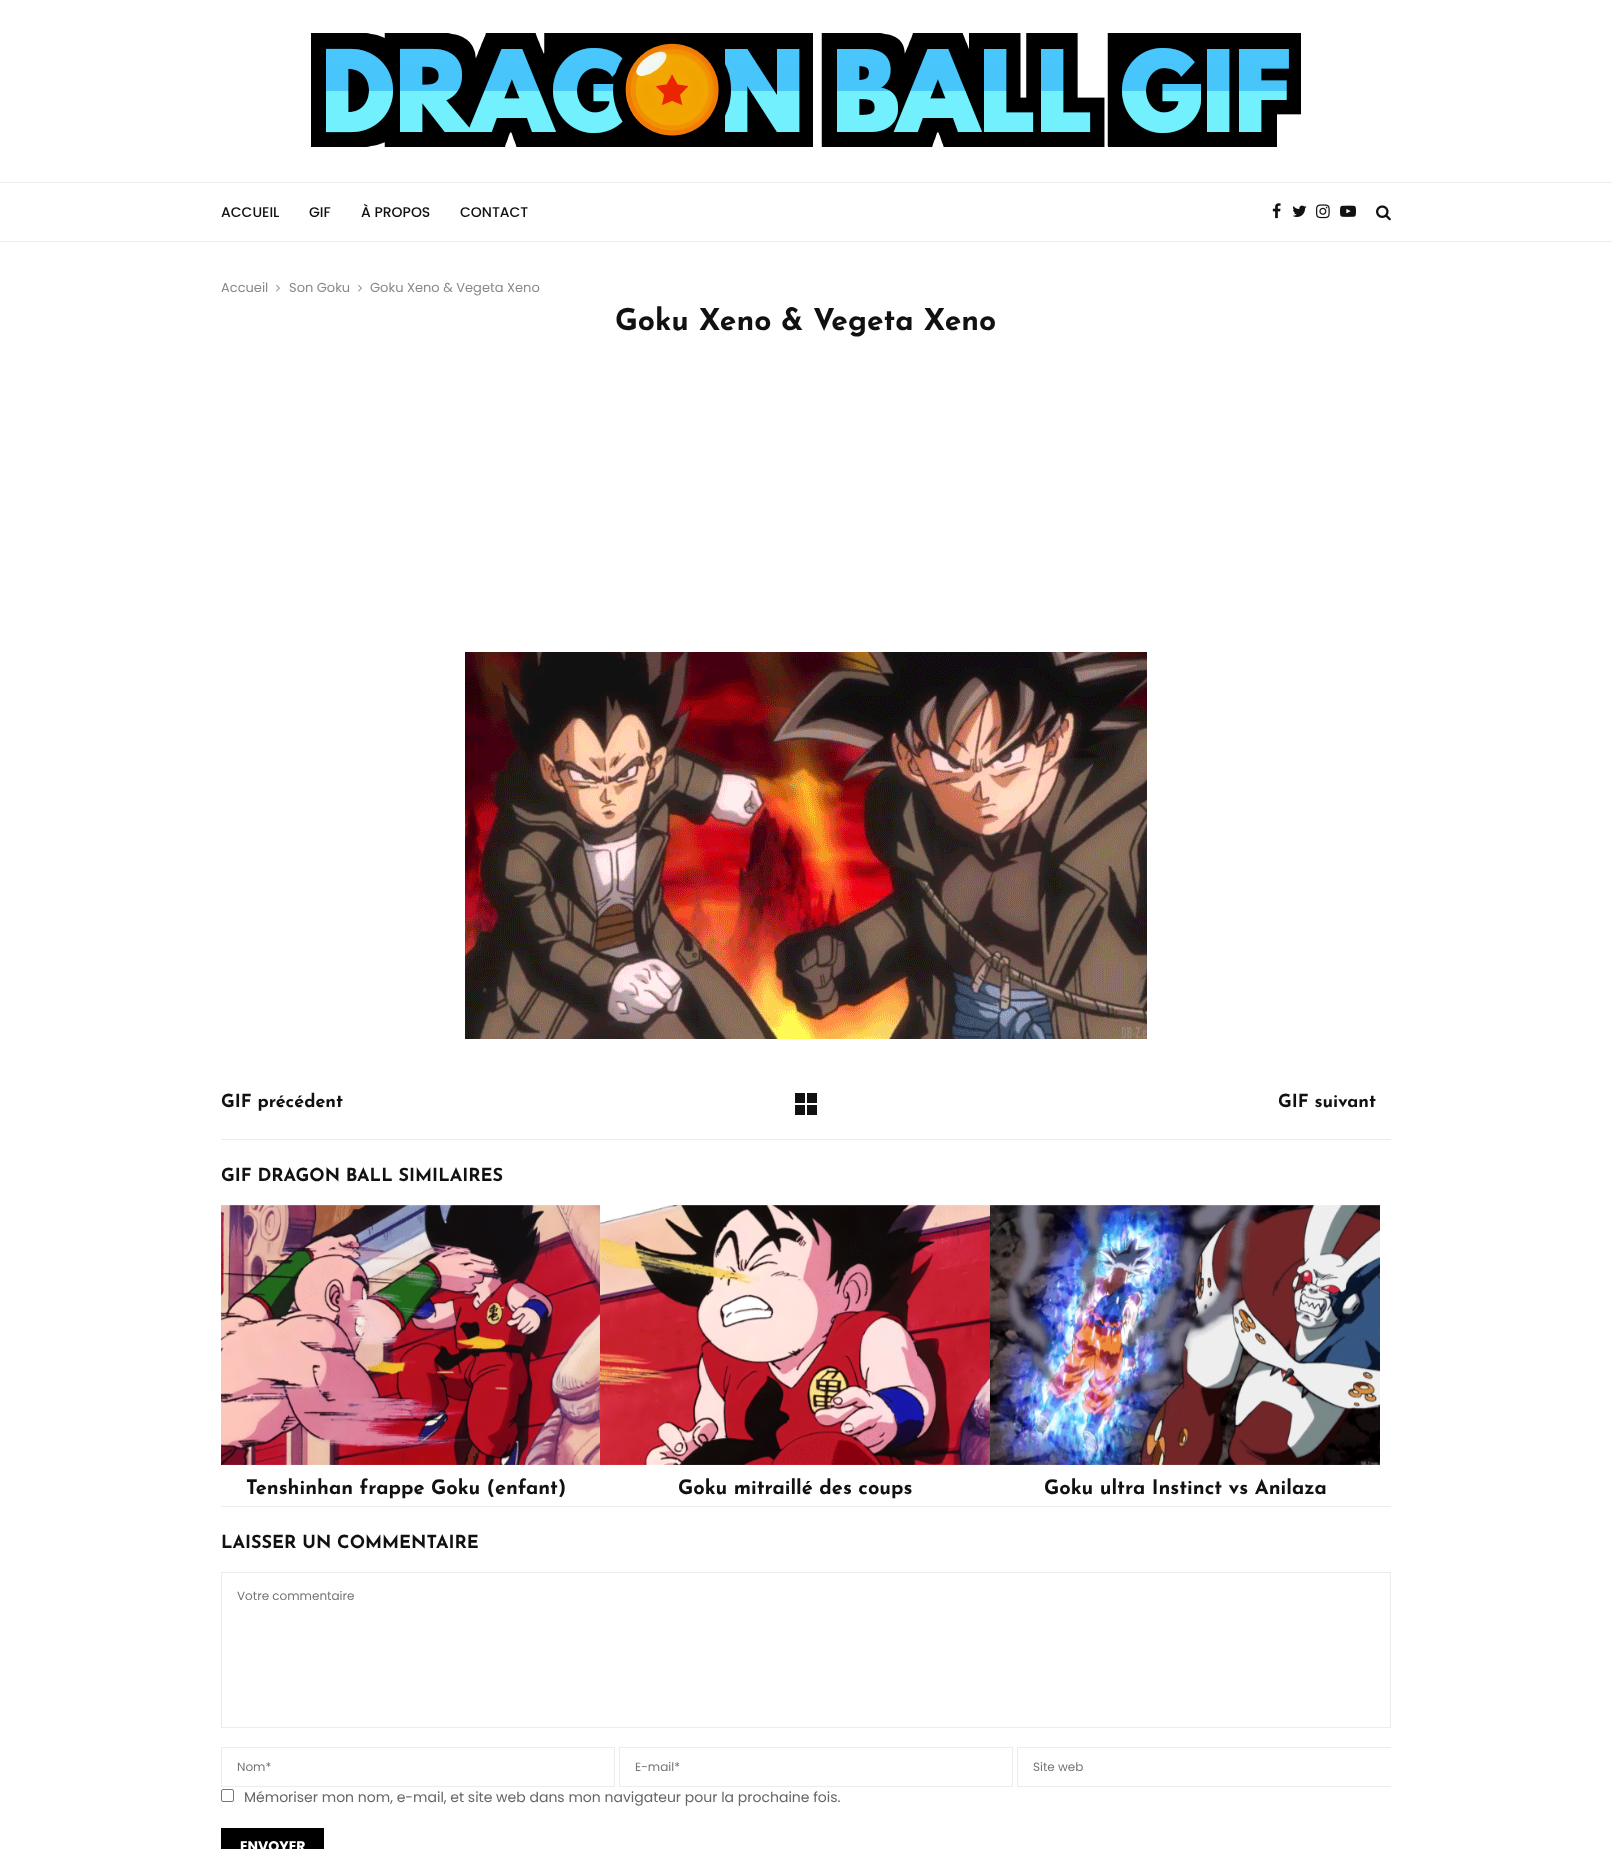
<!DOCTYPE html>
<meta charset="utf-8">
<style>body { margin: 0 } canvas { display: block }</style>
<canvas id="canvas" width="1612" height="1849"></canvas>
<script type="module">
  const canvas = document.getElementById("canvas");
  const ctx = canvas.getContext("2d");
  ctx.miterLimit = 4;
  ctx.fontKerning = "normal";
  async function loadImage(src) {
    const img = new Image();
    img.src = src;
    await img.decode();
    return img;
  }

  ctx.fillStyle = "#ffffff";
  ctx.fillRect(0, 0, 1612, 1849);
  ctx.drawImage(await loadImage("img1.png"), 311, 33, 990, 114);
  ctx.fillStyle = "#ececec";
  ctx.fillRect(0, 241, 1612, 1);
  ctx.fillRect(0, 182, 1612, 1);
  ctx.font = "500 14px Poppins";
  ctx.fillStyle = "#111111";
  ctx.fillText("ACCUEIL", 221, 217);
  ctx.fillText("GIF", 309, 217);
  ctx.fillText("À PROPOS", 361, 217);
  ctx.fillText("CONTACT", 460, 217);
  ctx.drawImage(await loadImage("img2.png"), 1272, 203, 9, 16);
  ctx.drawImage(await loadImage("img3.png"), 1292, 205, 15, 12);
  ctx.drawImage(await loadImage("img4.png"), 1316, 204, 14, 15);
  ctx.drawImage(await loadImage("img5.png"), 1340, 205, 16, 12);
  ctx.drawImage(await loadImage("img6.png"), 1376, 205, 15, 16);
  ctx.font = "13px Poppins";
  ctx.fillStyle = "#888888";
  ctx.fillText("Accueil", 221, 292);
  ctx.drawImage(await loadImage("img7.png"), 276, 284, 4, 8);
  ctx.fillText("Son Goku", 289, 292);
  ctx.drawImage(await loadImage("img7.png"), 358, 284, 4, 8);
  ctx.fillText("Goku Xeno & Vegeta Xeno", 370, 292);
  ctx.font = "bold 30px Josefin Sans";
  ctx.fillStyle = "#111111";
  ctx.fillText("Goku Xeno & Vegeta Xeno", 615, 330);
  ctx.drawImage(await loadImage("img8.png"), 465, 652, 682, 387);
  ctx.fillStyle = "#ececec";
  ctx.fillRect(221, 1139, 1170, 1);
  ctx.font = "bold 18px Josefin Sans";
  ctx.fillStyle = "#111111";
  ctx.fillText("GIF précédent", 221, 1107);
  ctx.fillRect(795, 1093, 10, 10);
  ctx.fillRect(807, 1093, 10, 10);
  ctx.fillRect(795, 1105, 10, 10);
  ctx.fillRect(807, 1105, 10, 10);
  ctx.fillText("GIF suivant", 1278, 1107);
  ctx.fillText("GIF DRAGON BALL SIMILAIRES", 221, 1181);
  ctx.drawImage(await loadImage("img9.png"), 221, 1205, 380, 260);
  ctx.font = "bold 20px Josefin Sans";
  ctx.fillText("Tenshinhan frappe Goku (enfant)", 246, 1494);
  ctx.drawImage(await loadImage("img10.png"), 600, 1205, 390, 260);
  ctx.fillText("Goku mitraillé des coups", 678, 1494);
  ctx.drawImage(await loadImage("img11.png"), 990, 1205, 390, 260);
  ctx.fillText("Goku ultra Instinct vs Anilaza", 1044, 1494);
  ctx.fillStyle = "#ececec";
  ctx.fillRect(221, 1506, 1170, 1);
  ctx.font = "bold 18px Josefin Sans";
  ctx.fillStyle = "#111111";
  ctx.fillText("LAISSER UN COMMENTAIRE", 221, 1548);
  ctx.strokeStyle = "#ececec";
  ctx.strokeRect(221.5, 1572.5, 1169, 155);
  ctx.font = "12px Poppins";
  ctx.fillStyle = "#757575";
  ctx.fillText("Votre commentaire", 237, 1600);
  ctx.strokeRect(221.5, 1747.5, 393, 39);
  ctx.fillText("Nom*", 237, 1771);
  ctx.strokeRect(619.5, 1747.5, 393, 39);
  ctx.fillText("E-mail*", 635, 1771);
  ctx.save();
  ctx.beginPath();
  ctx.rect(221, 1503, 1170, 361);
  ctx.clip();
  ctx.strokeRect(1017.5, 1747.5, 393, 39);
  ctx.restore();
  ctx.fillText("Site web", 1033, 1771);
  ctx.beginPath();
  ctx.roundRect(221.5, 1789.5, 12, 12, 1.5);
  ctx.strokeStyle = "#767676";
  ctx.stroke();
  ctx.font = "14px Poppins";
  ctx.fillStyle = "#666666";
  ctx.fillText("Mémoriser mon nom, e-mail, et site web dans mon navigateur pour la prochaine fois.", 244, 1802);
  ctx.fillStyle = "#000000";
  ctx.fillRect(221, 1828, 103, 21);
  ctx.font = "bold 14px Poppins";
  ctx.fillStyle = "#ffffff";
  ctx.fillText("ENVOYER", 240, 1851);
</script>
